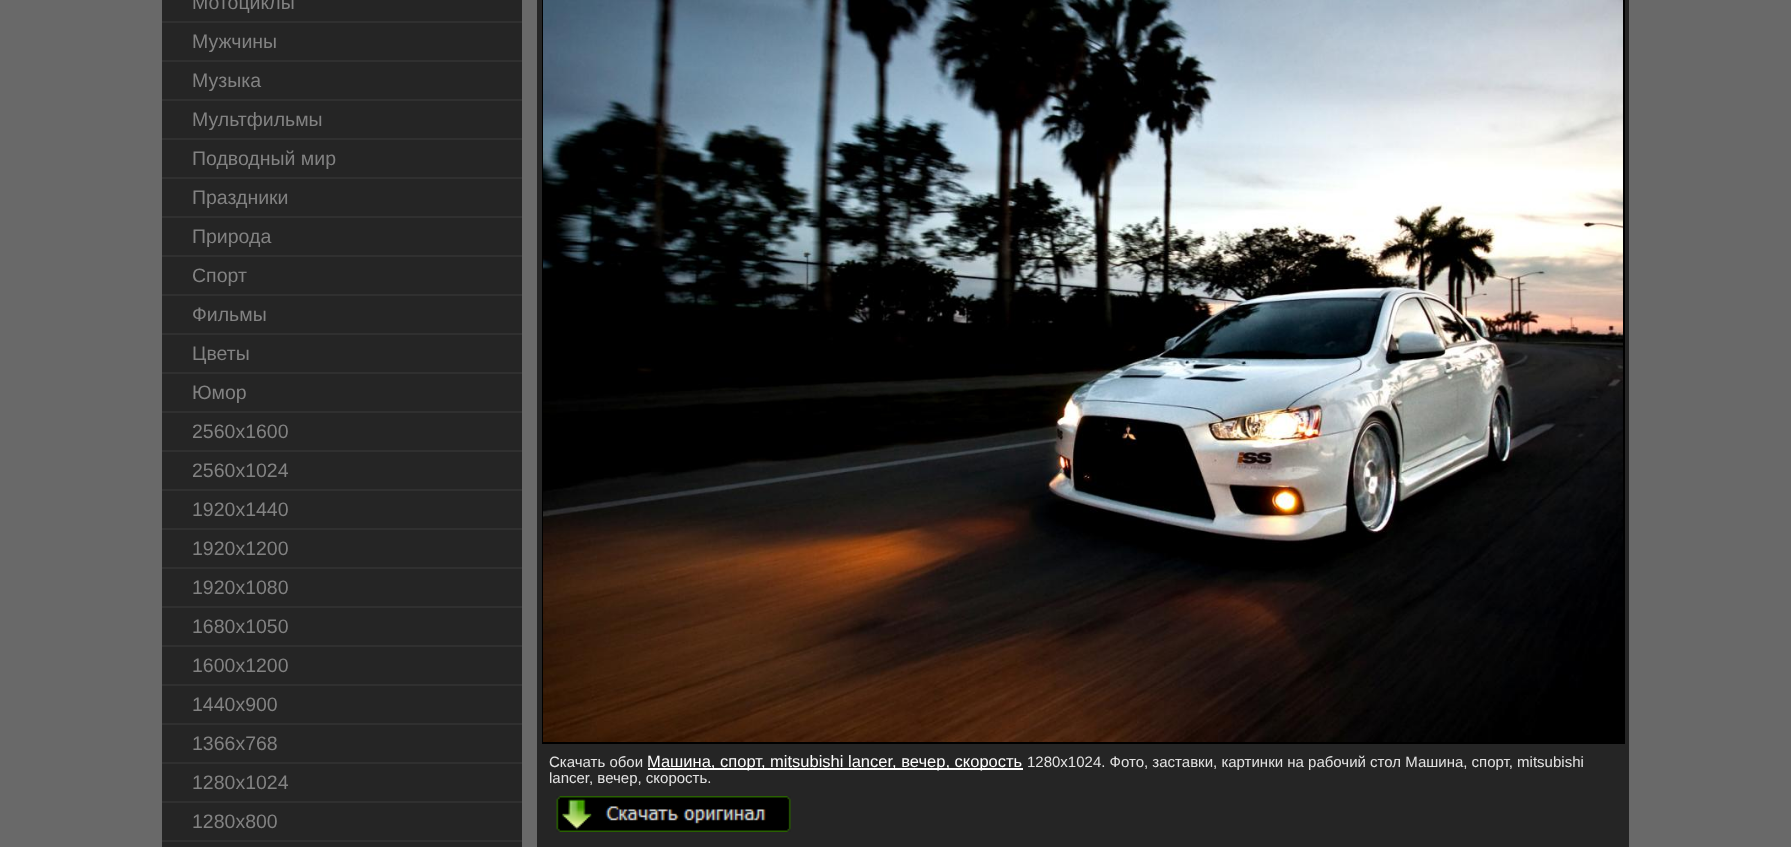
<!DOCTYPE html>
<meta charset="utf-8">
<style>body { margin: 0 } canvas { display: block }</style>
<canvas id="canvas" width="1791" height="847"></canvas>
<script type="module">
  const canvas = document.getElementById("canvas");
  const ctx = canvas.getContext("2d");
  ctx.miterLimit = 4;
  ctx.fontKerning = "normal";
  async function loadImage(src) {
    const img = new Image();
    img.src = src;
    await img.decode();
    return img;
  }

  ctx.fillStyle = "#696969";
  ctx.fillRect(0, 0, 1791, 847);
  ctx.fillStyle = "#252525";
  ctx.fillRect(162, 0, 360, 21);
  ctx.fillStyle = "#303030";
  ctx.fillRect(162, 21, 360, 2);
  ctx.font = "19.5px Liberation Sans";
  ctx.fillStyle = "#828282";
  ctx.fillText("Мотоциклы", 192, 9);
  ctx.fillStyle = "#252525";
  ctx.fillRect(162, 23, 360, 37);
  ctx.fillStyle = "#303030";
  ctx.fillRect(162, 60, 360, 2);
  ctx.fillStyle = "#828282";
  ctx.fillText("Мужчины", 192, 48);
  ctx.fillStyle = "#252525";
  ctx.fillRect(162, 62, 360, 37);
  ctx.fillStyle = "#303030";
  ctx.fillRect(162, 99, 360, 2);
  ctx.fillStyle = "#828282";
  ctx.fillText("Музыка", 192, 87);
  ctx.fillStyle = "#252525";
  ctx.fillRect(162, 101, 360, 37);
  ctx.fillStyle = "#303030";
  ctx.fillRect(162, 138, 360, 2);
  ctx.fillStyle = "#828282";
  ctx.fillText("Мультфильмы", 192, 126);
  ctx.fillStyle = "#252525";
  ctx.fillRect(162, 140, 360, 37);
  ctx.fillStyle = "#303030";
  ctx.fillRect(162, 177, 360, 2);
  ctx.fillStyle = "#828282";
  ctx.fillText("Подводный мир", 192, 165);
  ctx.fillStyle = "#252525";
  ctx.fillRect(162, 179, 360, 37);
  ctx.fillStyle = "#303030";
  ctx.fillRect(162, 216, 360, 2);
  ctx.fillStyle = "#828282";
  ctx.fillText("Праздники", 192, 204);
  ctx.fillStyle = "#252525";
  ctx.fillRect(162, 218, 360, 37);
  ctx.fillStyle = "#303030";
  ctx.fillRect(162, 255, 360, 2);
  ctx.fillStyle = "#828282";
  ctx.fillText("Природа", 192, 243);
  ctx.fillStyle = "#252525";
  ctx.fillRect(162, 257, 360, 37);
  ctx.fillStyle = "#303030";
  ctx.fillRect(162, 294, 360, 2);
  ctx.fillStyle = "#828282";
  ctx.fillText("Спорт", 192, 282);
  ctx.fillStyle = "#252525";
  ctx.fillRect(162, 296, 360, 37);
  ctx.fillStyle = "#303030";
  ctx.fillRect(162, 333, 360, 2);
  ctx.fillStyle = "#828282";
  ctx.fillText("Фильмы", 192, 321);
  ctx.fillStyle = "#252525";
  ctx.fillRect(162, 335, 360, 37);
  ctx.fillStyle = "#303030";
  ctx.fillRect(162, 372, 360, 2);
  ctx.fillStyle = "#828282";
  ctx.fillText("Цветы", 192, 360);
  ctx.fillStyle = "#252525";
  ctx.fillRect(162, 374, 360, 37);
  ctx.fillStyle = "#303030";
  ctx.fillRect(162, 411, 360, 2);
  ctx.fillStyle = "#828282";
  ctx.fillText("Юмор", 192, 399);
  ctx.fillStyle = "#252525";
  ctx.fillRect(162, 413, 360, 37);
  ctx.fillStyle = "#303030";
  ctx.fillRect(162, 450, 360, 2);
  ctx.fillStyle = "#828282";
  ctx.fillText("2560x1600", 192, 438);
  ctx.fillStyle = "#252525";
  ctx.fillRect(162, 452, 360, 37);
  ctx.fillStyle = "#303030";
  ctx.fillRect(162, 489, 360, 2);
  ctx.fillStyle = "#828282";
  ctx.fillText("2560x1024", 192, 477);
  ctx.fillStyle = "#252525";
  ctx.fillRect(162, 491, 360, 37);
  ctx.fillStyle = "#303030";
  ctx.fillRect(162, 528, 360, 2);
  ctx.fillStyle = "#828282";
  ctx.fillText("1920x1440", 192, 516);
  ctx.fillStyle = "#252525";
  ctx.fillRect(162, 530, 360, 37);
  ctx.fillStyle = "#303030";
  ctx.fillRect(162, 567, 360, 2);
  ctx.fillStyle = "#828282";
  ctx.fillText("1920x1200", 192, 555);
  ctx.fillStyle = "#252525";
  ctx.fillRect(162, 569, 360, 37);
  ctx.fillStyle = "#303030";
  ctx.fillRect(162, 606, 360, 2);
  ctx.fillStyle = "#828282";
  ctx.fillText("1920x1080", 192, 594);
  ctx.fillStyle = "#252525";
  ctx.fillRect(162, 608, 360, 37);
  ctx.fillStyle = "#303030";
  ctx.fillRect(162, 645, 360, 2);
  ctx.fillStyle = "#828282";
  ctx.fillText("1680x1050", 192, 633);
  ctx.fillStyle = "#252525";
  ctx.fillRect(162, 647, 360, 37);
  ctx.fillStyle = "#303030";
  ctx.fillRect(162, 684, 360, 2);
  ctx.fillStyle = "#828282";
  ctx.fillText("1600x1200", 192, 672);
  ctx.fillStyle = "#252525";
  ctx.fillRect(162, 686, 360, 37);
  ctx.fillStyle = "#303030";
  ctx.fillRect(162, 723, 360, 2);
  ctx.fillStyle = "#828282";
  ctx.fillText("1440x900", 192, 711);
  ctx.fillStyle = "#252525";
  ctx.fillRect(162, 725, 360, 37);
  ctx.fillStyle = "#303030";
  ctx.fillRect(162, 762, 360, 2);
  ctx.fillStyle = "#828282";
  ctx.fillText("1366x768", 192, 750);
  ctx.fillStyle = "#252525";
  ctx.fillRect(162, 764, 360, 37);
  ctx.fillStyle = "#303030";
  ctx.fillRect(162, 801, 360, 2);
  ctx.fillStyle = "#828282";
  ctx.fillText("1280x1024", 192, 789);
  ctx.fillStyle = "#252525";
  ctx.fillRect(162, 803, 360, 37);
  ctx.fillStyle = "#303030";
  ctx.fillRect(162, 840, 360, 2);
  ctx.fillStyle = "#828282";
  ctx.fillText("1280x800", 192, 828);
  ctx.fillStyle = "#252525";
  ctx.fillRect(162, 842, 360, 5);
  ctx.fillRect(537, 0, 1092, 847);
  ctx.strokeStyle = "#000000";
  ctx.lineWidth = 2;
  ctx.strokeRect(543, -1, 1081, 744);
  ctx.drawImage(await loadImage("img1.png"), 543, 0, 1080, 742);
  ctx.font = "15px Liberation Sans";
  ctx.fillStyle = "#e2e2e2";
  ctx.fillText("Скачать обои", 549, 767);
  ctx.fillStyle = "#ffffff";
  ctx.fillRect(648, 768, 375, 2);
  ctx.font = "16.5px Liberation Sans";
  ctx.fillText("Машина, спорт, mitsubishi lancer, вечер, скорость", 647, 767);
  ctx.font = "15px Liberation Sans";
  ctx.fillStyle = "#e2e2e2";
  ctx.fillText("1280x1024. Фото, заставки, картинки на рабочий стол Машина, спорт, mitsubishi", 1027, 767);
  ctx.fillText("lancer, вечер, скорость.", 549, 783);
  ctx.drawImage(await loadImage("img2.png"), 556, 796, 235, 36);
</script>
